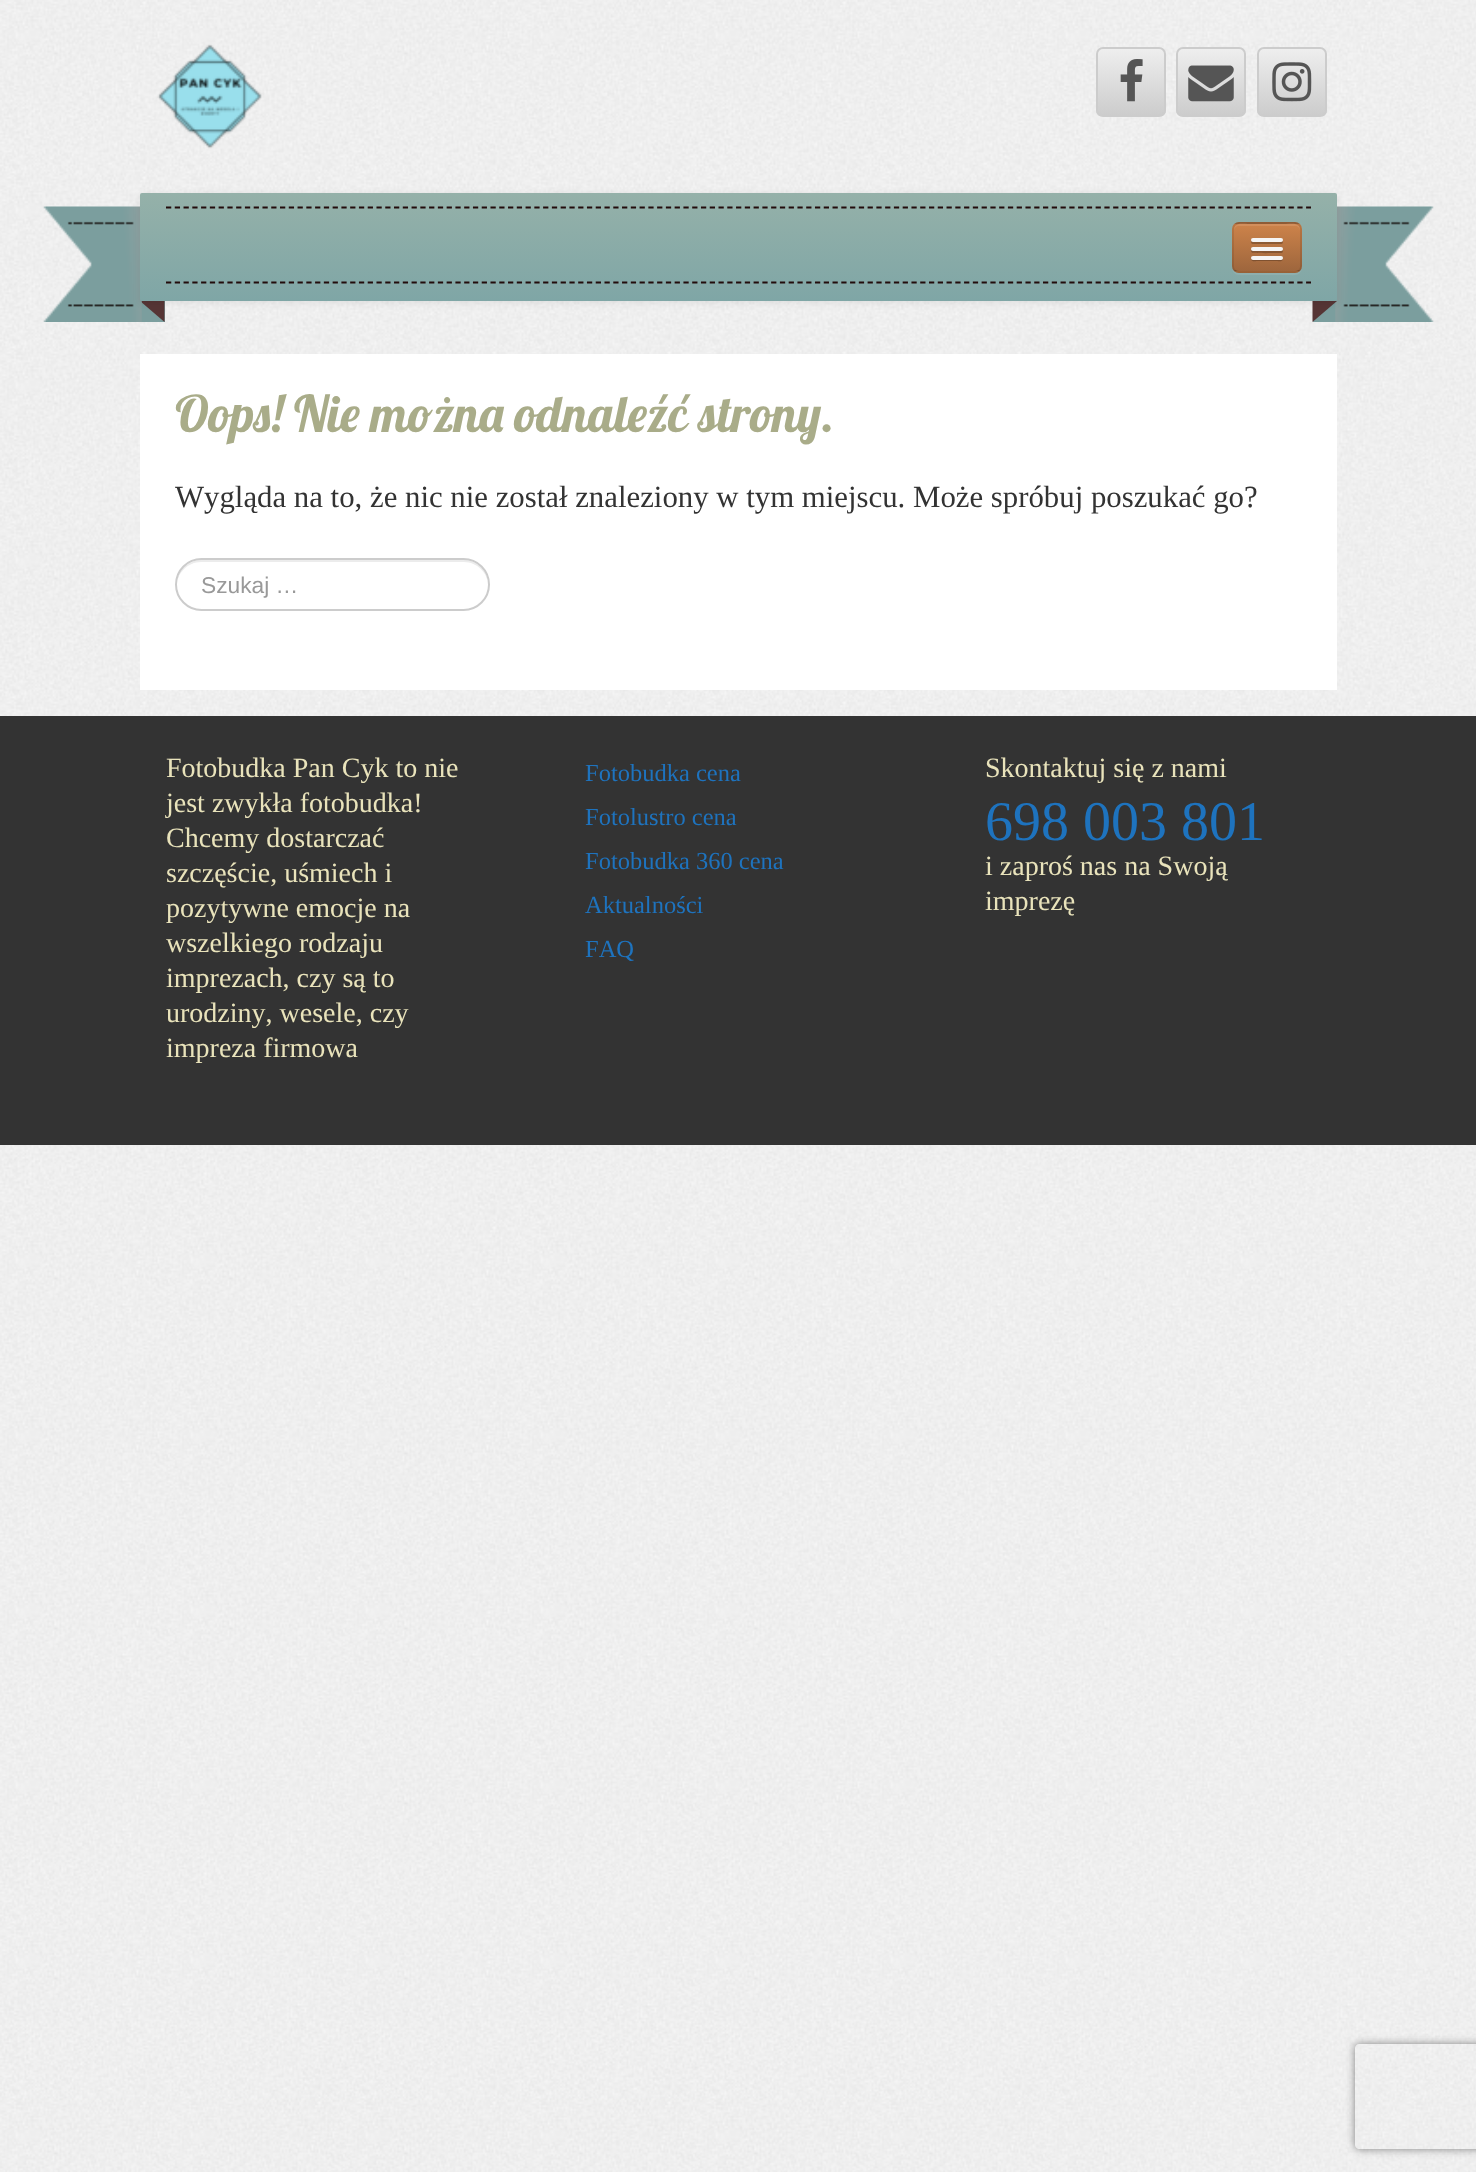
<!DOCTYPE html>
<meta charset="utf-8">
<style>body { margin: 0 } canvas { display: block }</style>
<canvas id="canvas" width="1476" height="2172"></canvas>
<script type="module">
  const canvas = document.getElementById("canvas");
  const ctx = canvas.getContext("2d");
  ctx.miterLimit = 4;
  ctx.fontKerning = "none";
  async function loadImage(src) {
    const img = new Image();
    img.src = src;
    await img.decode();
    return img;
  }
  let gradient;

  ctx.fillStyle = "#ffffff";
  ctx.fillRect(0, 0, 1476, 2172);
  ctx.drawImage(await loadImage("img1.png"), 0, 0, 1476, 2172);
  ctx.drawImage(await loadImage("img2.png"), 157, 44, 105, 105);
  ctx.save();
  ctx.beginPath();
  ctx.roundRect(1096, 47, 70, 70, 7);
  ctx.clip();
  gradient = ctx.createLinearGradient(1131, 49, 1131, 116);
  gradient.addColorStop(0, "#eeeeee");
  gradient.addColorStop(1, "#cccccc");
  ctx.fillStyle = gradient;
  ctx.fillRect(1096, 49, 70, 67);
  ctx.restore();
  ctx.beginPath();
  ctx.roundRect(1097, 48, 68, 68, 6);
  ctx.strokeStyle = "#cccccc";
  ctx.lineWidth = 2;
  ctx.stroke();
  ctx.drawImage(await loadImage("img3.png"), 1120, 59, 23, 43);
  ctx.save();
  ctx.beginPath();
  ctx.roundRect(1176, 47, 70, 70, 7);
  ctx.clip();
  gradient = ctx.createLinearGradient(1211, 49, 1211, 116);
  gradient.addColorStop(0, "#eeeeee");
  gradient.addColorStop(1, "#cccccc");
  ctx.fillStyle = gradient;
  ctx.fillRect(1176, 49, 70, 67);
  ctx.restore();
  ctx.beginPath();
  ctx.roundRect(1177, 48, 68, 68, 6);
  ctx.stroke();
  ctx.drawImage(await loadImage("img4.png"), 1188, 65, 46, 37);
  ctx.save();
  ctx.beginPath();
  ctx.roundRect(1257, 47, 70, 70, 7);
  ctx.clip();
  gradient = ctx.createLinearGradient(1292, 49, 1292, 116);
  gradient.addColorStop(0, "#eeeeee");
  gradient.addColorStop(1, "#cccccc");
  ctx.fillStyle = gradient;
  ctx.fillRect(1257, 49, 70, 67);
  ctx.restore();
  ctx.beginPath();
  ctx.roundRect(1258, 48, 68, 68, 6);
  ctx.stroke();
  ctx.drawImage(await loadImage("img5.png"), 1272, 62, 40, 40);
  ctx.fillStyle = "#7b9e9e";
  ctx.fillRect(141, 300, 24, 22);
  ctx.fillStyle = "#563535";
  ctx.beginPath();
  ctx.moveTo(140, 301);
  ctx.lineTo(164.5, 301);
  ctx.lineTo(164.5, 322);
  ctx.closePath();
  ctx.fill();
  ctx.drawImage(await loadImage("img6.png"), 43, 206, 99, 116);
  ctx.fillStyle = "#7b9e9e";
  ctx.fillRect(1313, 300, 23, 22);
  ctx.drawImage(await loadImage("img7.png"), 1335, 206, 99, 116);
  ctx.fillStyle = "#563535";
  ctx.beginPath();
  ctx.moveTo(1312.5, 301);
  ctx.lineTo(1337, 301);
  ctx.lineTo(1312.5, 322);
  ctx.closePath();
  ctx.fill();
  ctx.fillStyle = "rgba(0, 0, 0, 0.07)";
  ctx.filter = "blur(3.5px)";
  ctx.beginPath();
  ctx.roundRect(140, 194, 1197, 109, 2);
  ctx.fill();
  ctx.filter = "none";
  gradient = ctx.createLinearGradient(739, 192, 739, 301);
  gradient.addColorStop(0, "#95b1a9");
  gradient.addColorStop(1, "#7fa6a6");
  ctx.fillStyle = gradient;
  ctx.beginPath();
  ctx.roundRect(140, 193, 1197, 108, 2);
  ctx.fill();
  ctx.beginPath();
  ctx.moveTo(166, 207.5);
  ctx.lineTo(1311, 207.5);
  ctx.strokeStyle = "#220b0b";
  ctx.lineWidth = 1.8;
  ctx.setLineDash([5.25, 3.52]);
  ctx.stroke();
  ctx.beginPath();
  ctx.moveTo(166, 282.5);
  ctx.lineTo(1311, 282.5);
  ctx.stroke();
  ctx.fillStyle = "#8eafae";
  ctx.beginPath();
  ctx.moveTo(1232, 266);
  ctx.bezierCurveTo(1232, 277, 1240, 275, 1248, 275);
  ctx.lineTo(1286, 275);
  ctx.bezierCurveTo(1294, 275, 1302, 277, 1302, 266);
  ctx.bezierCurveTo(1302, 270, 1299, 273, 1295, 273);
  ctx.lineTo(1239, 273);
  ctx.bezierCurveTo(1235, 273, 1232, 270, 1232, 266);
  ctx.closePath();
  ctx.fill();
  ctx.save();
  ctx.beginPath();
  ctx.roundRect(1232, 222, 70, 51, 7);
  ctx.clip();
  gradient = ctx.createLinearGradient(1267, 177, 1267, 224);
  gradient.addColorStop(0, "#cd834a");
  gradient.addColorStop(1, "#9e663d");
  ctx.fillStyle = gradient;
  ctx.fillRect(1232, 222, 70, 2);
  gradient = ctx.createLinearGradient(1267, 224, 1267, 271);
  gradient.addColorStop(0, "#cd834a");
  gradient.addColorStop(1, "#9e663d");
  ctx.fillStyle = gradient;
  ctx.fillRect(1232, 224, 70, 47);
  gradient = ctx.createLinearGradient(1267, 271, 1267, 319);
  gradient.addColorStop(0, "#cd834a");
  gradient.addColorStop(1, "#9e663d");
  ctx.fillStyle = gradient;
  ctx.fillRect(1232, 271, 70, 2);
  ctx.restore();
  ctx.fillStyle = "#d28f5c";
  ctx.beginPath();
  ctx.moveTo(1239, 226);
  ctx.lineTo(1295, 226);
  ctx.bezierCurveTo(1298, 226, 1300, 228, 1300, 231);
  ctx.bezierCurveTo(1300, 222, 1293, 224, 1286, 224);
  ctx.lineTo(1248, 224);
  ctx.bezierCurveTo(1241, 224, 1234, 222, 1234, 231);
  ctx.bezierCurveTo(1234, 228, 1236, 226, 1239, 226);
  ctx.closePath();
  ctx.fill();
  ctx.beginPath();
  ctx.moveTo(1299.5, 270.5);
  ctx.bezierCurveTo(1298, 271.5, 1296.5, 272, 1295, 272);
  ctx.lineTo(1239, 272);
  ctx.bezierCurveTo(1237.5, 272, 1236, 271.5, 1234.5, 270.5);
  ctx.strokeStyle = "rgba(0, 0, 0, 0.25)";
  ctx.setLineDash([]);
  ctx.stroke();
  ctx.beginPath();
  ctx.moveTo(1234.5, 270.5);
  ctx.bezierCurveTo(1233.5, 269, 1233, 267.5, 1233, 266);
  ctx.lineTo(1233, 229);
  ctx.bezierCurveTo(1233, 227.5, 1233.5, 226, 1234.5, 225);
  ctx.bezierCurveTo(1236, 224, 1237.5, 223, 1239, 223);
  ctx.lineTo(1295, 223);
  ctx.bezierCurveTo(1296.5, 223, 1298, 224, 1299.5, 225);
  ctx.bezierCurveTo(1300.5, 226, 1301, 227.5, 1301, 229);
  ctx.lineTo(1301, 266);
  ctx.bezierCurveTo(1301, 267.5, 1300.5, 269, 1299.5, 270.5);
  ctx.strokeStyle = "rgba(0, 0, 0, 0.1)";
  ctx.stroke();
  ctx.fillStyle = "#8c5a34";
  ctx.beginPath();
  ctx.moveTo(1251.5, 240.5);
  ctx.bezierCurveTo(1250.5, 242, 1251, 243.5, 1252.5, 244);
  ctx.lineTo(1281.5, 244);
  ctx.bezierCurveTo(1283, 243.5, 1283.5, 242, 1282.5, 240.5);
  ctx.lineTo(1281, 241.5);
  ctx.lineTo(1253, 241.5);
  ctx.closePath();
  ctx.fill();
  ctx.fillStyle = "#f5f5f5";
  ctx.beginPath();
  ctx.roundRect(1251, 238, 32, 4, 2);
  ctx.fill();
  ctx.fillStyle = "#865632";
  ctx.beginPath();
  ctx.moveTo(1251.5, 249.5);
  ctx.bezierCurveTo(1250.5, 250.5, 1251, 252, 1252, 252.5);
  ctx.bezierCurveTo(1253, 253.5, 1277.5, 253, 1281, 253);
  ctx.bezierCurveTo(1283, 253, 1283.5, 251, 1282.5, 249.5);
  ctx.lineTo(1281, 250);
  ctx.lineTo(1253, 250);
  ctx.closePath();
  ctx.fill();
  ctx.fillStyle = "#f5f5f5";
  ctx.beginPath();
  ctx.roundRect(1251, 247, 32, 4, 2);
  ctx.fill();
  ctx.fillStyle = "#7f5130";
  ctx.beginPath();
  ctx.moveTo(1251.5, 258);
  ctx.lineTo(1251, 259.5);
  ctx.bezierCurveTo(1251.5, 262, 1256.5, 261, 1257.5, 261);
  ctx.lineTo(1276.5, 261);
  ctx.bezierCurveTo(1277.5, 261, 1282.5, 262, 1283, 259.5);
  ctx.lineTo(1282.5, 258);
  ctx.bezierCurveTo(1282.5, 258.5, 1282, 259, 1281, 259);
  ctx.lineTo(1253, 259);
  ctx.bezierCurveTo(1252, 259, 1251.5, 258.5, 1251.5, 258);
  ctx.closePath();
  ctx.fill();
  ctx.fillStyle = "#f5f5f5";
  ctx.beginPath();
  ctx.roundRect(1251, 256, 32, 4, 2);
  ctx.fill();
  ctx.fillStyle = "#ffffff";
  ctx.fillRect(140, 354, 1197, 336);
  ctx.font = "50.4px Lobster";
  ctx.fillStyle = "#a9ac89";
  ctx.fillText("Oops! Nie można odnaleźć strony.", 175, 432);
  ctx.font = "30.8px Liberation Serif";
  ctx.fillStyle = "#333333";
  ctx.fillText("Wygląda na to, że nic nie został znaleziony w tym miejscu. Może spróbuj poszukać go?", 175, 507);
  ctx.fillStyle = "#ececec";
  ctx.beginPath();
  ctx.moveTo(201, 562);
  ctx.lineTo(464, 562);
  ctx.bezierCurveTo(477, 562, 488, 573, 488, 585);
  ctx.lineTo(488, 584);
  ctx.bezierCurveTo(488, 571, 477, 560, 464, 560);
  ctx.lineTo(202, 560);
  ctx.bezierCurveTo(188, 560, 177, 571, 177, 584);
  ctx.lineTo(177, 585);
  ctx.bezierCurveTo(177, 573, 188, 562, 201, 562);
  ctx.closePath();
  ctx.fill();
  ctx.beginPath();
  ctx.roundRect(176, 559, 313, 51, 25.5);
  ctx.strokeStyle = "#cccccc";
  ctx.lineWidth = 2;
  ctx.stroke();
  ctx.font = "22.75px Liberation Sans";
  ctx.fillStyle = "#999999";
  ctx.fillText("Szukaj …", 201, 593);
  ctx.fillStyle = "#333333";
  ctx.fillRect(0, 716, 1476, 429);
  ctx.font = "28px Liberation Serif";
  ctx.fillStyle = "#e9e3bb";
  ctx.fillText("Fotobudka Pan Cyk to nie", 166, 777);
  ctx.fillText("jest zwykła fotobudka!", 166, 812);
  ctx.fillText("Chcemy dostarczać", 166, 847);
  ctx.fillText("szczęście, uśmiech i", 166, 882);
  ctx.fillText("pozytywne emocje na", 166, 917);
  ctx.fillText("wszelkiego rodzaju", 166, 952);
  ctx.fillText("imprezach, czy są to", 166, 987);
  ctx.fillText("urodziny, wesele, czy", 166, 1022);
  ctx.fillText("impreza firmowa", 166, 1057);
  ctx.font = "24.5px Liberation Serif";
  ctx.fillStyle = "#1e73be";
  ctx.fillText("Fotobudka cena", 585, 781);
  ctx.fillText("Fotolustro cena", 585, 825);
  ctx.fillText("Fotobudka 360 cena", 585, 869);
  ctx.fillText("Aktualności", 585, 913);
  ctx.fillText("FAQ", 585, 957);
  ctx.font = "28px Liberation Serif";
  ctx.fillStyle = "#e9e3bb";
  ctx.fillText("Skontaktuj się z nami", 985, 777);
  ctx.font = "56px Liberation Serif";
  ctx.fillStyle = "#1e73be";
  ctx.fillText("698 003 801", 985, 840);
  ctx.font = "28px Liberation Serif";
  ctx.fillStyle = "#e9e3bb";
  ctx.fillText("i zaproś nas na Swoją", 985, 875);
  ctx.fillText("imprezę", 985, 910);
  ctx.save();
  ctx.beginPath();
  ctx.moveTo(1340, 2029);
  ctx.lineTo(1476, 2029);
  ctx.lineTo(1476, 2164);
  ctx.lineTo(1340, 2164);
  ctx.closePath();
  ctx.moveTo(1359, 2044);
  ctx.lineTo(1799, 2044);
  ctx.bezierCurveTo(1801, 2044, 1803, 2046, 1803, 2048);
  ctx.lineTo(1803, 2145);
  ctx.bezierCurveTo(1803, 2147, 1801, 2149, 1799, 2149);
  ctx.lineTo(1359, 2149);
  ctx.bezierCurveTo(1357, 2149, 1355, 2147, 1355, 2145);
  ctx.lineTo(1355, 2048);
  ctx.bezierCurveTo(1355, 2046, 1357, 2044, 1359, 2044);
  ctx.closePath();
  ctx.clip("evenodd");
  ctx.fillStyle = "#808080";
  ctx.filter = "blur(4.5px)";
  ctx.beginPath();
  ctx.roundRect(1355, 2044, 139, 105, 4);
  ctx.fill();
  ctx.filter = "none";
  ctx.restore();
</script>
